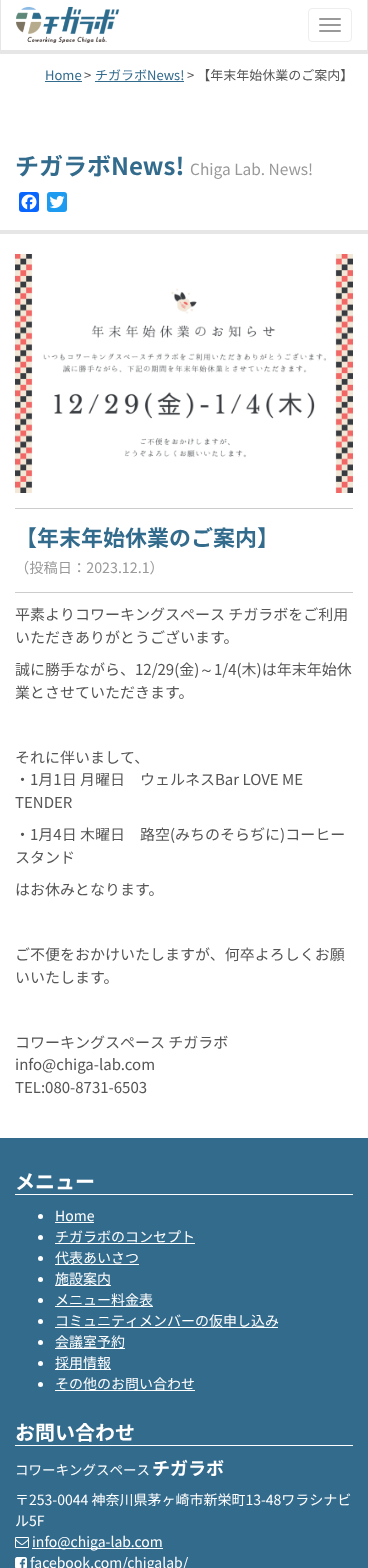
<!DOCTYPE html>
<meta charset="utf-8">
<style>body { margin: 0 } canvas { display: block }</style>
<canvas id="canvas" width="368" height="1568"></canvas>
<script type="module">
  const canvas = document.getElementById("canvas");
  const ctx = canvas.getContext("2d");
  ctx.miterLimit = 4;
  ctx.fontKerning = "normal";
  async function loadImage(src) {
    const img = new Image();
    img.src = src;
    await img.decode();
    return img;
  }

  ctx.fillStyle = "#ffffff";
  ctx.fillRect(0, 0, 368, 1568);
  ctx.fillStyle = "#e6e6e6";
  ctx.fillRect(367, 0, 1, 54);
  ctx.fillRect(0, 50, 368, 4);
  ctx.fillRect(0, 0, 1, 54);
  ctx.drawImage(await loadImage("img1.png"), 16, 6, 104, 37);
  ctx.beginPath();
  ctx.roundRect(308.5, 8.5, 43, 33, 3.5);
  ctx.strokeStyle = "#eeeeee";
  ctx.stroke();
  ctx.fillStyle = "#999999";
  ctx.beginPath();
  ctx.roundRect(319, 18, 22, 2, 1);
  ctx.fill();
  ctx.beginPath();
  ctx.roundRect(319, 24, 22, 2, 1);
  ctx.fill();
  ctx.beginPath();
  ctx.roundRect(319, 30, 22, 2, 1);
  ctx.fill();
  ctx.font = "13px Noto Sans JP";
  ctx.fillStyle = "#336b8d";
  ctx.fillText("Home", 45, 80);
  ctx.fillRect(45, 81, 37, 1);
  ctx.fillStyle = "#555555";
  ctx.fillText(">", 84, 80);
  ctx.fillStyle = "#336b8d";
  ctx.fillText("チガラボNews!", 95, 80);
  ctx.fillRect(95, 81, 89, 1);
  ctx.fillStyle = "#555555";
  ctx.fillText("> 【年末年始休業のご案内】", 187, 80);
  ctx.font = "bold 24px Noto Sans JP";
  ctx.fillStyle = "#336b8d";
  ctx.fillText("チガラボNews!", 15, 175);
  ctx.font = "15.5px Noto Sans JP";
  ctx.fillStyle = "#999999";
  ctx.fillText("Chiga Lab. News!", 190, 175);
  ctx.fillStyle = "#0866ff";
  ctx.beginPath();
  ctx.roundRect(19, 192, 20, 20, 3);
  ctx.fill();
  ctx.drawImage(await loadImage("img2.png"), 21, 194, 16, 16);
  ctx.fillStyle = "#1d9bf0";
  ctx.beginPath();
  ctx.roundRect(47, 192, 20, 20, 3);
  ctx.fill();
  ctx.drawImage(await loadImage("img3.png"), 49, 195, 16, 14);
  ctx.fillStyle = "#e6e6e6";
  ctx.fillRect(0, 230, 368, 4);
  ctx.drawImage(await loadImage("img4.png"), 15, 254, 338, 239);
  ctx.fillStyle = "#cccccc";
  ctx.fillRect(15, 508, 338, 1);
  ctx.fillRect(15, 592, 338, 1);
  ctx.font = "bold 22px Noto Sans JP";
  ctx.fillStyle = "#336b8d";
  ctx.fillText("【年末年始休業のご案内】", 15, 546);
  ctx.font = "14.25px Noto Sans JP";
  ctx.fillStyle = "#999999";
  ctx.fillText("（投稿日：2023.12.1）", 15, 573);
  ctx.font = "15px Noto Sans JP";
  ctx.fillStyle = "#555555";
  ctx.fillText("平素よりコワーキングスペース チガラボをご利用", 15, 620);
  ctx.fillText("いただきありがとうございます。", 15, 643);
  ctx.fillText("誠に勝手ながら、12/29(金)", 15, 675);
  ctx.font = "500 15px WenQuanYi Zen Hei";
  ctx.fillText("～", 199, 675);
  ctx.font = "15px Noto Sans JP";
  ctx.fillText("1/4(木)は年末年始休", 214, 675);
  ctx.fillText("業とさせていただきます。", 15, 698);
  ctx.fillText("それに伴いまして、", 15, 763);
  ctx.fillText("・1月1日 月曜日　ウェルネスBar LOVE ME", 15, 785);
  ctx.fillText("TENDER", 15, 808);
  ctx.fillText("・1月4日 木曜日　路空(みちのそらぢに)コーヒー", 15, 840);
  ctx.fillText("スタンド", 15, 863);
  ctx.fillText("はお休みとなります。", 15, 895);
  ctx.fillText("ご不便をおかけいたしますが、何卒よろしくお願", 15, 960);
  ctx.fillText("いいたします。", 15, 983);
  ctx.fillText("コワーキングスペース チガラボ", 15, 1048);
  ctx.fillText("info@chiga-lab.com", 15, 1070);
  ctx.fillText("TEL:080-8731-6503", 15, 1093);
  ctx.fillStyle = "#336b8d";
  ctx.fillRect(0, 1138, 368, 430);
  ctx.fillStyle = "#ffffff";
  ctx.fillRect(15, 1194, 338, 1);
  ctx.font = "bold 20px Noto Sans JP";
  ctx.fillText("メニュー", 15, 1189);
  ctx.beginPath();
  ctx.arc(40.5, 1216.5, 2.5, 0, Math.PI * 2);
  ctx.fill();
  ctx.font = "14px Noto Sans JP";
  ctx.fillText("Home", 55, 1221);
  ctx.fillRect(55, 1222, 39, 1);
  ctx.beginPath();
  ctx.arc(40.5, 1237.5, 2.5, 0, Math.PI * 2);
  ctx.fill();
  ctx.fillText("チガラボのコンセプト", 55, 1242);
  ctx.fillRect(55, 1243, 140, 1);
  ctx.beginPath();
  ctx.arc(40.5, 1258.5, 2.5, 0, Math.PI * 2);
  ctx.fill();
  ctx.fillRect(55, 1264, 84, 1);
  ctx.fillText("代表あいさつ", 55, 1263);
  ctx.beginPath();
  ctx.arc(40.5, 1279.5, 2.5, 0, Math.PI * 2);
  ctx.fill();
  ctx.fillRect(55, 1285, 56, 1);
  ctx.fillText("施設案内", 55, 1284);
  ctx.beginPath();
  ctx.arc(40.5, 1300.5, 2.5, 0, Math.PI * 2);
  ctx.fill();
  ctx.fillRect(55, 1306, 98, 1);
  ctx.fillText("メニュー料金表", 55, 1305);
  ctx.beginPath();
  ctx.arc(40.5, 1321.5, 2.5, 0, Math.PI * 2);
  ctx.fill();
  ctx.fillRect(55, 1327, 223, 1);
  ctx.fillText("コミュニティメンバーの仮申し込み", 55, 1326);
  ctx.beginPath();
  ctx.arc(40.5, 1342.5, 2.5, 0, Math.PI * 2);
  ctx.fill();
  ctx.fillRect(55, 1348, 70, 1);
  ctx.fillText("会議室予約", 55, 1347);
  ctx.beginPath();
  ctx.arc(40.5, 1363.5, 2.5, 0, Math.PI * 2);
  ctx.fill();
  ctx.fillRect(55, 1369, 56, 1);
  ctx.fillText("採用情報", 55, 1368);
  ctx.beginPath();
  ctx.arc(40.5, 1384.5, 2.5, 0, Math.PI * 2);
  ctx.fill();
  ctx.fillRect(55, 1390, 140, 1);
  ctx.fillText("その他のお問い合わせ", 55, 1389);
  ctx.fillRect(15, 1445, 338, 1);
  ctx.font = "bold 20px Noto Sans JP";
  ctx.fillText("お問い合わせ", 15, 1440);
  ctx.font = "13.5px Noto Sans JP";
  ctx.fillText("コワーキングスペース", 15, 1475);
  ctx.font = "bold 18px Noto Sans JP";
  ctx.fillText("チガラボ", 152, 1475);
  ctx.font = "14px Noto Sans JP";
  ctx.fillText("〒253-0044 神奈川県茅ヶ崎市新栄町13-48ワラシナビ", 15, 1505);
  ctx.fillText("ル5F", 15, 1526);
  ctx.drawImage(await loadImage("img5.png"), 15, 1537, 14, 11);
  ctx.fillRect(32, 1548, 131, 1);
  ctx.fillText("info@chiga-lab.com", 32, 1547);
  ctx.drawImage(await loadImage("img6.png"), 15, 1557, 12, 11);
  ctx.fillText("facebook.com/chigalab/", 30, 1568);
</script>
